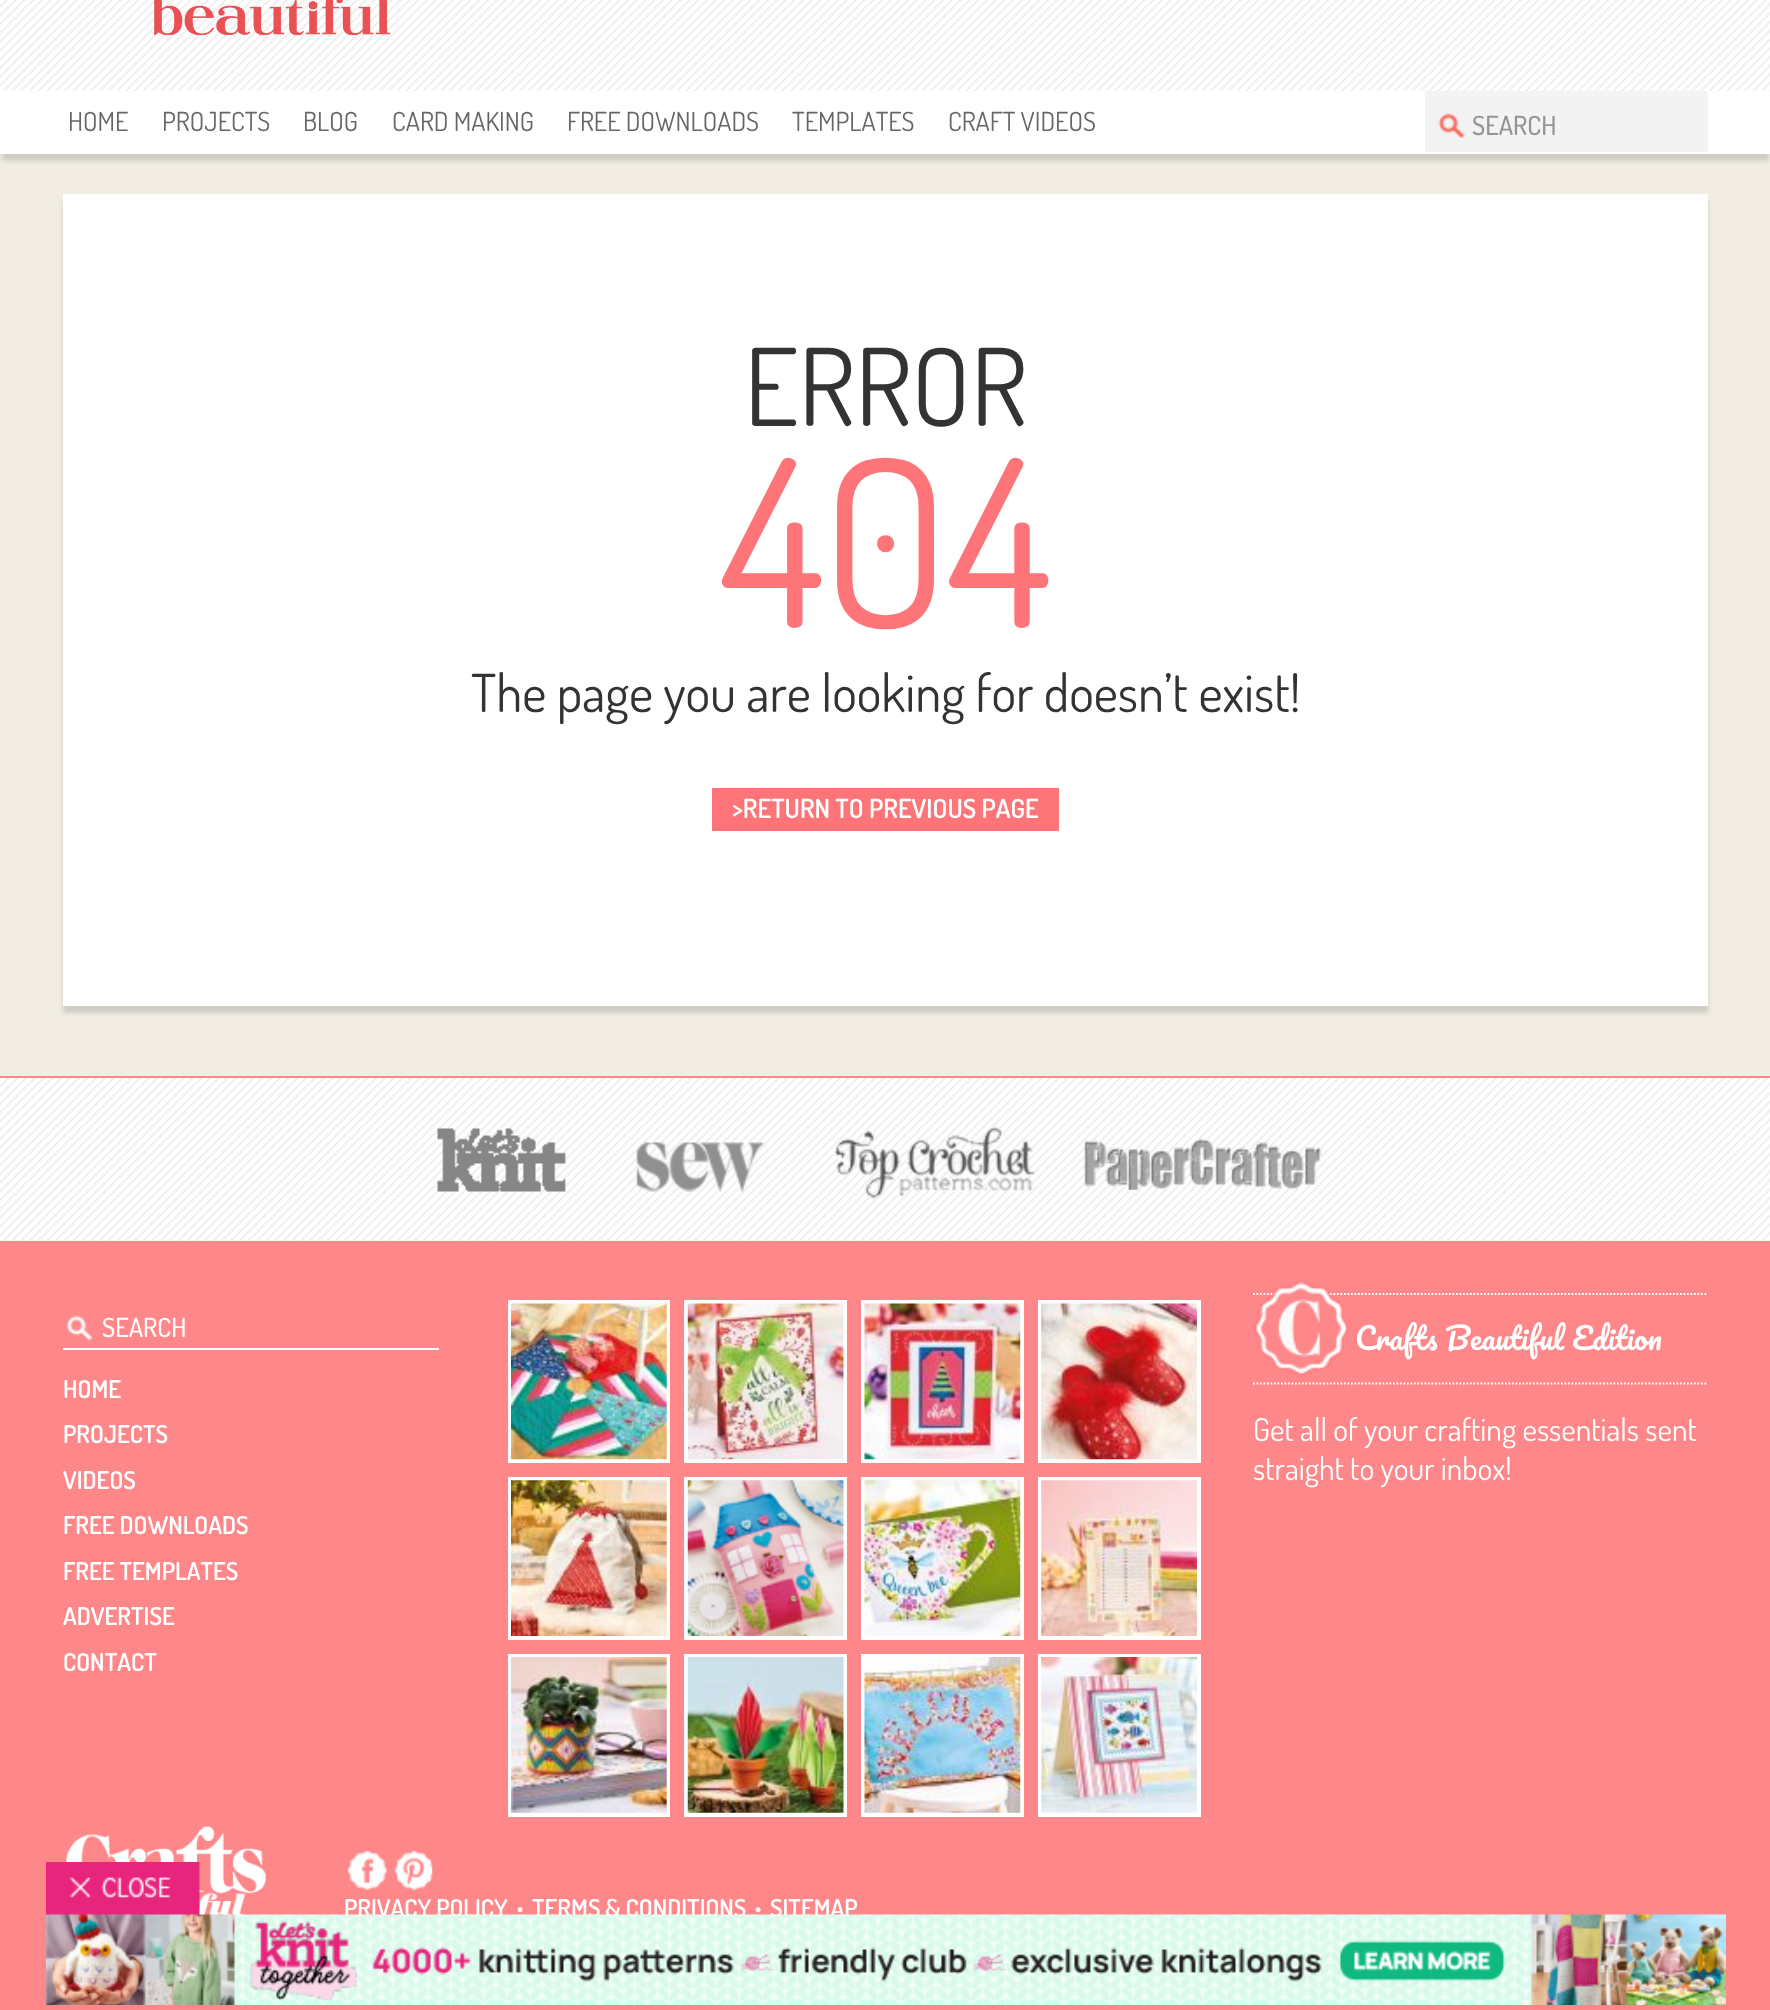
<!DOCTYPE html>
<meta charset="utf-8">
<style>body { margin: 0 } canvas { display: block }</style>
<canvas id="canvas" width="1770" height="2010"></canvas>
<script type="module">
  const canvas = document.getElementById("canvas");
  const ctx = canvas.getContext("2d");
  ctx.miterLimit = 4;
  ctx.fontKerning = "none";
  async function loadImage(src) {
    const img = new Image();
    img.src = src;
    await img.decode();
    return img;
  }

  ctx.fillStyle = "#f1ede2";
  ctx.fillRect(0, 0, 1770, 2010);
  ctx.drawImage(await loadImage("img1.png"), 0, 0, 1770, 91);
  ctx.drawImage(await loadImage("img2.png"), 154, 0, 237, 36);
  ctx.fillStyle = "#cfccc5";
  ctx.filter = "blur(2px)";
  ctx.beginPath();
  ctx.rect(2, 102, 1767, 59);
  ctx.fill();
  ctx.filter = "none";
  ctx.fillStyle = "#ffffff";
  ctx.fillRect(0, 91, 1770, 63);
  ctx.font = "26.25px Dosis";
  ctx.fillStyle = "#666666";
  ctx.fillText("HOME", 68, 131);
  ctx.fillText("PROJECTS", 162, 131);
  ctx.fillText("BLOG", 303, 131);
  ctx.fillText("CARD MAKING", 392, 131);
  ctx.fillText("FREE DOWNLOADS", 567, 131);
  ctx.fillText("TEMPLATES", 792, 131);
  ctx.fillText("CRAFT VIDEOS", 948, 131);
  ctx.fillStyle = "#f4f3f3";
  ctx.fillRect(1425, 91, 283, 61);
  ctx.drawImage(await loadImage("img3.png"), 1438, 113, 27, 25);
  ctx.font = "500 26.25px Dosis";
  ctx.fillStyle = "#959494";
  ctx.fillText("SEARCH", 1472, 135);
  ctx.fillStyle = "#cfccc5";
  ctx.filter = "blur(2px)";
  ctx.beginPath();
  ctx.rect(63, 201, 1645, 812);
  ctx.fill();
  ctx.filter = "none";
  ctx.fillStyle = "#ffffff";
  ctx.fillRect(63, 194, 1645, 812);
  ctx.font = "107px Dosis";
  ctx.fillStyle = "#333333";
  ctx.fillText("ERROR", 744, 426);
  ctx.font = "233px Dosis";
  ctx.fillStyle = "#fd7578";
  ctx.fillText("404", 720, 628);
  ctx.font = "52.5px Dosis";
  ctx.fillStyle = "#333333";
  ctx.fillText("The page you are looking for doesn’t exist!", 471, 712);
  ctx.fillStyle = "#fd7578";
  ctx.fillRect(712, 788, 347, 43);
  ctx.font = "600 26.25px Dosis";
  ctx.fillStyle = "#ffffff";
  ctx.fillText(">RETURN TO PREVIOUS PAGE", 732, 818);
  ctx.drawImage(await loadImage("img4.png"), 0, 1078, 1770, 163);
  ctx.fillStyle = "#fe878a";
  ctx.fillRect(0, 1076, 1770, 2);
  ctx.drawImage(await loadImage("img5.png"), 437, 1128, 129, 64);
  ctx.drawImage(await loadImage("img6.png"), 636, 1142, 128, 50);
  ctx.drawImage(await loadImage("img7.png"), 833, 1126, 202, 73);
  ctx.drawImage(await loadImage("img8.png"), 1084, 1138, 238, 52);
  ctx.fillRect(0, 1241, 1770, 769);
  ctx.drawImage(await loadImage("img9.png"), 66, 1315, 27, 26);
  ctx.fillStyle = "#ffffff";
  ctx.fillRect(63, 1348, 376, 2);
  ctx.font = "500 26.25px Dosis";
  ctx.fillText("SEARCH", 102, 1337);
  ctx.font = "600 24.5px Dosis";
  ctx.fillText("HOME", 63, 1398);
  ctx.fillText("PROJECTS", 63, 1443);
  ctx.fillText("VIDEOS", 63, 1489);
  ctx.fillText("FREE DOWNLOADS", 63, 1534);
  ctx.fillText("FREE TEMPLATES", 63, 1580);
  ctx.fillText("ADVERTISE", 63, 1625);
  ctx.fillText("CONTACT", 63, 1671);
  ctx.fillRect(508, 1300, 162, 163);
  ctx.drawImage(await loadImage("img10.png"), 511, 1303, 156, 157);
  ctx.fillRect(684, 1300, 163, 163);
  ctx.drawImage(await loadImage("img11.png"), 687, 1303, 157, 157);
  ctx.fillRect(861, 1300, 163, 163);
  ctx.drawImage(await loadImage("img12.png"), 864, 1303, 157, 157);
  ctx.fillRect(1038, 1300, 163, 163);
  ctx.drawImage(await loadImage("img13.png"), 1041, 1303, 156, 157);
  ctx.fillRect(508, 1477, 162, 163);
  ctx.drawImage(await loadImage("img14.png"), 511, 1480, 156, 156);
  ctx.fillRect(684, 1477, 163, 163);
  ctx.drawImage(await loadImage("img15.png"), 687, 1480, 157, 156);
  ctx.fillRect(861, 1477, 163, 163);
  ctx.drawImage(await loadImage("img16.png"), 864, 1480, 157, 156);
  ctx.fillRect(1038, 1477, 163, 163);
  ctx.drawImage(await loadImage("img17.png"), 1041, 1480, 156, 156);
  ctx.fillRect(508, 1654, 162, 163);
  ctx.drawImage(await loadImage("img18.png"), 511, 1657, 156, 156);
  ctx.fillRect(684, 1654, 163, 163);
  ctx.drawImage(await loadImage("img19.png"), 687, 1657, 157, 156);
  ctx.fillRect(861, 1654, 163, 163);
  ctx.drawImage(await loadImage("img20.png"), 864, 1657, 157, 156);
  ctx.fillRect(1038, 1654, 163, 163);
  ctx.drawImage(await loadImage("img21.png"), 1041, 1657, 156, 156);
  ctx.beginPath();
  ctx.moveTo(1253, 1294);
  ctx.lineTo(1708, 1294);
  ctx.strokeStyle = "#ffffff";
  ctx.lineWidth = 1.8;
  ctx.setLineDash([1.75, 1.75]);
  ctx.stroke();
  ctx.beginPath();
  ctx.moveTo(1253, 1383.5);
  ctx.lineTo(1708, 1383.5);
  ctx.stroke();
  ctx.drawImage(await loadImage("img22.png"), 1254, 1281, 95, 95);
  ctx.font = "29.75px Pacifico";
  ctx.fillText("Crafts Beautiful Edition", 1355, 1350);
  ctx.font = "31.5px 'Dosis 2'";
  ctx.fillText("Get all of your crafting essentials sent", 1253, 1441);
  ctx.fillText("straight to your inbox!", 1253, 1480);
  ctx.drawImage(await loadImage("img23.png"), 66, 1826, 200, 89);
  ctx.drawImage(await loadImage("img24.png"), 348, 1851, 39, 39);
  ctx.drawImage(await loadImage("img25.png"), 394, 1851, 39, 39);
  ctx.font = "600 24.5px Dosis";
  ctx.fillText("PRIVACY POLICY", 344, 1917);
  ctx.font = "800 31.5px Dosis";
  ctx.fillText(".", 517, 1912);
  ctx.font = "600 24.5px Dosis";
  ctx.fillText("TERMS & CONDITIONS", 532, 1917);
  ctx.font = "800 31.5px Dosis";
  ctx.fillText(".", 755, 1912);
  ctx.font = "600 24.5px Dosis";
  ctx.fillText("SITEMAP", 770, 1917);
  ctx.drawImage(await loadImage("img26.png"), 46, 1862, 1680, 143);
</script>
